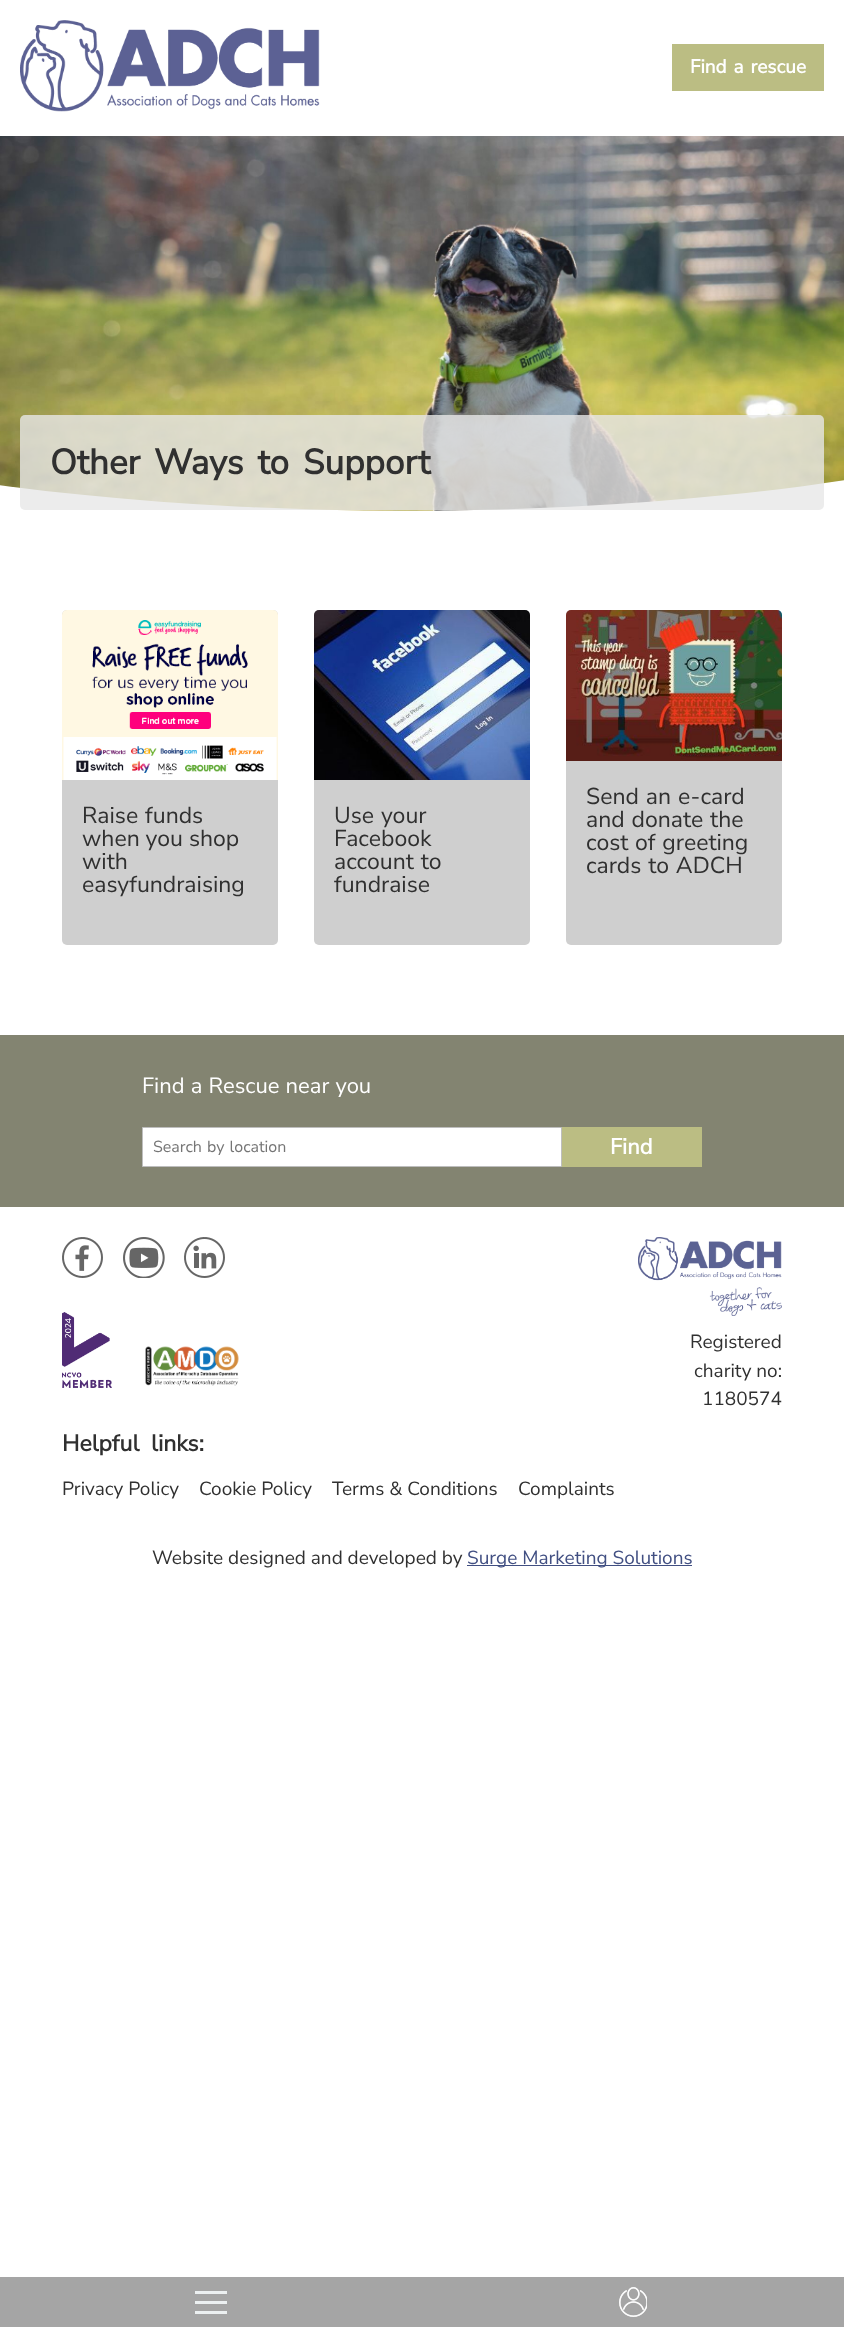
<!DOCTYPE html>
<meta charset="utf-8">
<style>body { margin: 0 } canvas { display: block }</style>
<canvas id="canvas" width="844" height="2327"></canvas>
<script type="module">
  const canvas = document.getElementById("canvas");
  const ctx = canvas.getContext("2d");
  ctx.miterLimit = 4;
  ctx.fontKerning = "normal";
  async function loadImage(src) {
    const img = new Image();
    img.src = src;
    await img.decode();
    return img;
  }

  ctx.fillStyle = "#ffffff";
  ctx.fillRect(0, 0, 844, 2327);
  ctx.drawImage(await loadImage("img1.png"), 20, 20, 300, 92);
  ctx.fillStyle = "#bbbd83";
  ctx.fillRect(672, 44, 152, 47);
  ctx.wordSpacing = "2px";
  ctx.font = "bold 19px Nunito Sans";
  ctx.fillStyle = "#ffffff";
  ctx.fillText("Find a rescue", 690, 73);
  ctx.drawImage(await loadImage("img2.png"), 0, 136, 844, 375);
  ctx.fillStyle = "rgba(231, 231, 231, 0.8)";
  ctx.beginPath();
  ctx.roundRect(20, 415, 804, 95, 5);
  ctx.fill();
  ctx.wordSpacing = "5px";
  ctx.font = "bold 35px Nunito Sans";
  ctx.fillStyle = "#303030";
  ctx.fillText("Other Ways to Support", 50, 474);
  ctx.fillStyle = "#cfcfcf";
  ctx.beginPath();
  ctx.roundRect(62, 610, 216, 335, 5);
  ctx.fill();
  ctx.drawImage(await loadImage("img3.png"), 62, 610, 216, 170);
  ctx.wordSpacing = "1px";
  ctx.font = "23px Nunito Sans";
  ctx.fillStyle = "#303030";
  ctx.fillText("Raise funds", 82, 823);
  ctx.wordSpacing = "0px";
  ctx.fillText("when you shop", 82, 846);
  ctx.fillText("with", 82, 869);
  ctx.fillText("easyfundraising", 82, 892);
  ctx.fillStyle = "#cfcfcf";
  ctx.beginPath();
  ctx.roundRect(314, 610, 216, 335, 5);
  ctx.fill();
  ctx.drawImage(await loadImage("img4.png"), 314, 610, 216, 170);
  ctx.wordSpacing = "1px";
  ctx.fillStyle = "#303030";
  ctx.fillText("Use your", 334, 823);
  ctx.wordSpacing = "0px";
  ctx.fillText("Facebook", 334, 846);
  ctx.wordSpacing = "1px";
  ctx.fillText("account to", 334, 869);
  ctx.wordSpacing = "0px";
  ctx.fillText("fundraise", 334, 892);
  ctx.fillStyle = "#cfcfcf";
  ctx.beginPath();
  ctx.roundRect(566, 610, 216, 335, 5);
  ctx.fill();
  ctx.drawImage(await loadImage("img5.png"), 566, 610, 216, 151);
  ctx.wordSpacing = "1px";
  ctx.fillStyle = "#303030";
  ctx.fillText("Send an e-card", 586, 804);
  ctx.fillText("and donate the", 586, 827);
  ctx.fillText("cost of greeting", 586, 850);
  ctx.fillText("cards to ADCH", 586, 873);
  ctx.fillStyle = "#838471";
  ctx.fillRect(0, 1035, 844, 172);
  ctx.wordSpacing = "0.5px";
  ctx.font = "22px Nunito Sans";
  ctx.fillStyle = "#ffffff";
  ctx.fillText("Find a Rescue near you", 142, 1093);
  ctx.beginPath();
  ctx.rect(142.5, 1127.5, 419, 39);
  ctx.fill();
  ctx.strokeStyle = "#bebebe";
  ctx.stroke();
  ctx.wordSpacing = "1px";
  ctx.font = "16px Nunito Sans";
  ctx.fillStyle = "#757575";
  ctx.fillText("Search by location", 153, 1152);
  ctx.fillStyle = "#bbbd83";
  ctx.fillRect(562, 1127, 140, 40);
  ctx.wordSpacing = "0px";
  ctx.font = "bold 22px Nunito Sans";
  ctx.fillStyle = "#ffffff";
  ctx.fillText("Find", 610, 1154);
  ctx.drawImage(await loadImage("img6.png"), 638, 1237, 144, 79);
  ctx.font = "19px Nunito Sans";
  ctx.fillStyle = "#303030";
  ctx.fillText("Registered", 690, 1348);
  ctx.fillText("charity no:", 694, 1377);
  ctx.fillText("1180574", 702, 1405);
  ctx.drawImage(await loadImage("img7.png"), 62, 1237, 41, 41);
  ctx.drawImage(await loadImage("img8.png"), 123, 1237, 42, 41);
  ctx.drawImage(await loadImage("img9.png"), 184, 1237, 41, 41);
  ctx.drawImage(await loadImage("img10.png"), 62, 1312, 50, 76);
  ctx.drawImage(await loadImage("img11.png"), 145, 1346, 94, 40);
  ctx.wordSpacing = "6px";
  ctx.font = "bold 23px Nunito Sans";
  ctx.fillText("Helpful links:", 62, 1451);
  ctx.wordSpacing = "0px";
  ctx.font = "19px Nunito Sans";
  ctx.fillText("Privacy Policy", 62, 1495);
  ctx.fillText("Cookie Policy", 199, 1495);
  ctx.fillText("Terms & Conditions", 332, 1495);
  ctx.fillText("Complaints", 518, 1495);
  ctx.fillText("Website designed and developed by", 152, 1564);
  ctx.fillStyle = "#414f82";
  ctx.fillRect(467, 1565, 225, 1);
  ctx.fillText("Surge Marketing Solutions", 467, 1564);
  ctx.fillStyle = "#a5a5a5";
  ctx.fillRect(0, 2277, 844, 50);
  ctx.fillStyle = "#ecf0f1";
  ctx.fillRect(195, 2291, 32, 3);
  ctx.fillRect(195, 2301, 32, 3);
  ctx.fillRect(195, 2311, 32, 3);
  ctx.drawImage(await loadImage("img12.png"), 619, 2287, 28, 30);
</script>
